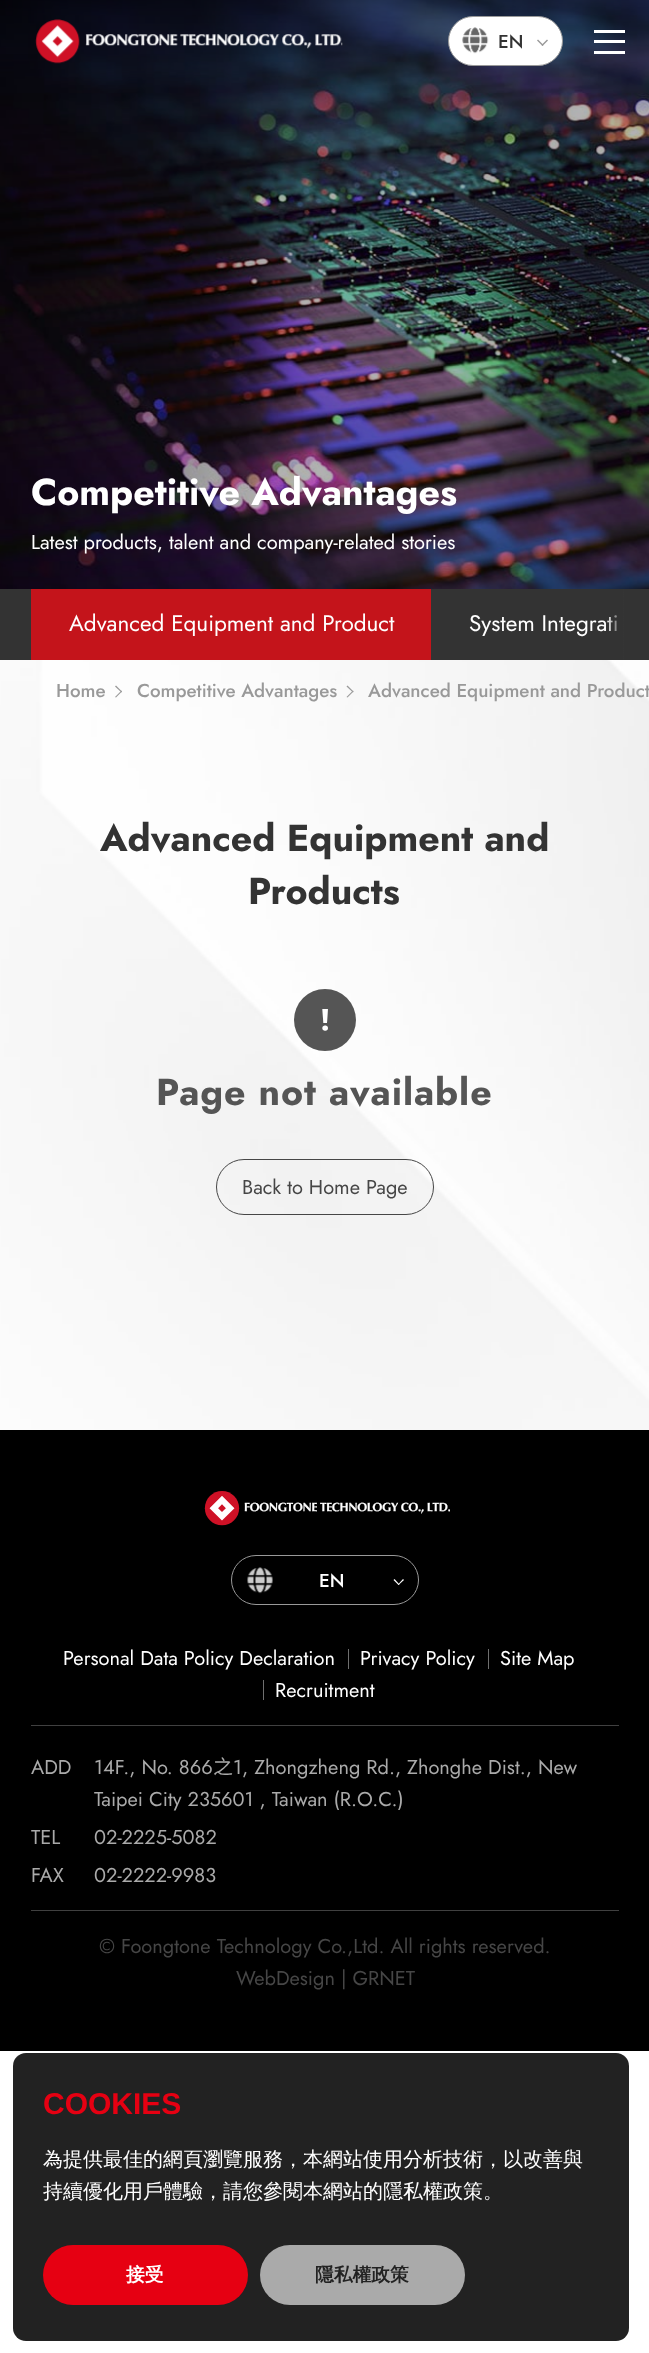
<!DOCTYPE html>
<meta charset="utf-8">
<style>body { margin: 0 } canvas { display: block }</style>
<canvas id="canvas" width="649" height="2353"></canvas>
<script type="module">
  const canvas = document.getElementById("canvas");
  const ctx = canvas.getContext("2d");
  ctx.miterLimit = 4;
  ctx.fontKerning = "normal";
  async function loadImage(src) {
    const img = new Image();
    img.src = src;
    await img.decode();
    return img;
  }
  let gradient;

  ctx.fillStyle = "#ffffff";
  ctx.fillRect(0, 0, 649, 2353);
  ctx.drawImage(await loadImage("img3.png"), 0, 0, 649, 589);
  ctx.drawImage(await loadImage("img1.png"), 35, 19, 308, 45);
  ctx.beginPath();
  ctx.roundRect(448.5, 16.5, 114, 49, 24.5);
  ctx.fill();
  ctx.strokeStyle = "#999999";
  ctx.stroke();
  ctx.drawImage(await loadImage("img2.png"), 462, 27, 27, 27);
  ctx.font = "500 18.75px Jost";
  ctx.fillStyle = "#333333";
  ctx.fillText("EN", 498, 48);
  ctx.fillStyle = "#999999";
  ctx.beginPath();
  ctx.moveTo(541.5, 45);
  ctx.lineTo(547, 39.5);
  ctx.lineTo(548, 40.5);
  ctx.lineTo(542.5, 46);
  ctx.closePath();
  ctx.fill();
  ctx.beginPath();
  ctx.moveTo(537, 40.5);
  ctx.lineTo(538, 39.5);
  ctx.lineTo(543.5, 45);
  ctx.lineTo(542.5, 46);
  ctx.closePath();
  ctx.fill();
  ctx.fillStyle = "#ffffff";
  ctx.fillRect(594, 30, 31, 3);
  ctx.fillRect(594, 40, 31, 3);
  ctx.fillRect(594, 51, 31, 3);
  ctx.font = "bold 37.5px Jost";
  ctx.fillText("Competitive Advantages", 31, 505);
  ctx.font = "20px Jost";
  ctx.fillText("Latest products, talent and company-related stories", 31, 549);
  ctx.fillStyle = "#333333";
  ctx.fillRect(0, 589, 623, 71);
  ctx.fillStyle = "#c4141b";
  ctx.fillRect(31, 589, 400, 71);
  ctx.font = "22.5px Jost";
  ctx.fillStyle = "#ffffff";
  ctx.fillText("Advanced Equipment and Product", 69, 631);
  ctx.fillText("System Integrati", 469, 631);
  gradient = ctx.createLinearGradient(606, 624, 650, 624);
  gradient.addColorStop(0, "rgba(51, 51, 51, 0)");
  gradient.addColorStop(0.4, "#333333");
  ctx.fillStyle = gradient;
  ctx.fillRect(607, 589, 42, 71);
  ctx.drawImage(await loadImage("img4.png"), 0, 660, 649, 770);
  ctx.font = "500 18.75px Jost";
  ctx.fillStyle = "#999999";
  ctx.fillText("Home", 56, 697);
  ctx.beginPath();
  ctx.moveTo(115, 686.5);
  ctx.lineTo(116, 685.5);
  ctx.lineTo(122, 691.5);
  ctx.lineTo(121.5, 692.5);
  ctx.closePath();
  ctx.fill();
  ctx.beginPath();
  ctx.moveTo(115, 697);
  ctx.lineTo(121.5, 690.5);
  ctx.lineTo(122, 691.5);
  ctx.lineTo(116, 697.5);
  ctx.closePath();
  ctx.fill();
  ctx.fillText("Competitive Advantages", 137, 697);
  ctx.beginPath();
  ctx.moveTo(346.5, 686.5);
  ctx.lineTo(347.5, 685.5);
  ctx.lineTo(353.5, 691.5);
  ctx.lineTo(353, 692.5);
  ctx.closePath();
  ctx.fill();
  ctx.beginPath();
  ctx.moveTo(346.5, 697);
  ctx.lineTo(353, 690.5);
  ctx.lineTo(353.5, 691.5);
  ctx.lineTo(347.5, 697.5);
  ctx.closePath();
  ctx.fill();
  ctx.fillText("Advanced Equipment and Product", 368, 697);
  ctx.font = "bold 37.5px Jost";
  ctx.fillStyle = "#333333";
  ctx.fillText("Advanced Equipment and", 100, 851);
  ctx.fillText("Products", 248, 904);
  ctx.fillStyle = "#555555";
  ctx.beginPath();
  ctx.arc(325, 1020, 31, 0, Math.PI * 2);
  ctx.fill();
  ctx.font = "bold 30px Jost";
  ctx.fillStyle = "#ffffff";
  ctx.fillText("!", 320, 1030);
  ctx.letterSpacing = "0.9px";
  ctx.font = "bold 37.5px Jost";
  ctx.fillStyle = "#555555";
  ctx.fillText("Page not available", 156, 1105);
  ctx.beginPath();
  ctx.roundRect(216.5, 1159.5, 217, 55, 27.5);
  ctx.strokeStyle = "#464646";
  ctx.stroke();
  ctx.letterSpacing = "0px";
  ctx.font = "20px Jost";
  ctx.fillStyle = "#464646";
  ctx.fillText("Back to Home Page", 242, 1194);
  ctx.fillStyle = "#000000";
  ctx.fillRect(0, 1430, 649, 621);
  ctx.drawImage(await loadImage("img5.png"), 204, 1491, 246, 35);
  ctx.beginPath();
  ctx.roundRect(231.5, 1555.5, 187, 49, 24.5);
  ctx.strokeStyle = "#999999";
  ctx.stroke();
  ctx.drawImage(await loadImage("img6.png"), 247, 1567, 26, 27);
  ctx.font = "500 18.75px Jost";
  ctx.fillStyle = "#ffffff";
  ctx.fillText("EN", 319, 1587);
  ctx.beginPath();
  ctx.moveTo(398, 1584.5);
  ctx.lineTo(403, 1579);
  ctx.lineTo(404, 1580);
  ctx.lineTo(398.5, 1585);
  ctx.closePath();
  ctx.fill();
  ctx.beginPath();
  ctx.moveTo(393.5, 1580);
  ctx.lineTo(394.5, 1579);
  ctx.lineTo(399.5, 1584.5);
  ctx.lineTo(398.5, 1585);
  ctx.closePath();
  ctx.fill();
  ctx.font = "20px Jost";
  ctx.fillText("Personal Data Policy Declaration", 63, 1665);
  ctx.fillStyle = "#6f6f6f";
  ctx.fillRect(348, 1649, 1, 20);
  ctx.fillStyle = "#ffffff";
  ctx.fillText("Privacy Policy", 360, 1665);
  ctx.fillStyle = "#6f6f6f";
  ctx.fillRect(488, 1649, 1, 20);
  ctx.fillStyle = "#ffffff";
  ctx.fillText("Site Map", 500, 1665);
  ctx.fillStyle = "#6f6f6f";
  ctx.fillRect(263, 1680, 1, 20);
  ctx.fillStyle = "#ffffff";
  ctx.fillText("Recruitment", 275, 1697);
  ctx.fillStyle = "#404040";
  ctx.fillRect(31, 1725, 588, 1);
  ctx.fillStyle = "#aaaaaa";
  ctx.fillText("ADD", 31, 1774);
  ctx.fillText("14F., No. 866", 94, 1774);
  ctx.font = "20px Noto Sans TC";
  ctx.fillText("之", 213, 1774);
  ctx.font = "20px Jost";
  ctx.fillText("1, Zhongzheng Rd., Zhonghe Dist., New", 233, 1774);
  ctx.fillText("Taipei City 235601 , Taiwan (R.O.C.)", 94, 1806);
  ctx.fillText("TEL", 31, 1844);
  ctx.fillText("02-2225-5082", 94, 1844);
  ctx.fillText("FAX", 31, 1882);
  ctx.fillText("02-2222-9983", 94, 1882);
  ctx.fillStyle = "#404040";
  ctx.fillRect(31, 1910, 588, 1);
  ctx.fillStyle = "#464646";
  ctx.fillText("© Foongtone Technology Co.,Ltd. All rights reserved.", 99, 1953);
  ctx.fillText("WebDesign | GRNET", 236, 1985);
  ctx.fillStyle = "#222222";
  ctx.beginPath();
  ctx.roundRect(13, 2053, 616, 288, 13);
  ctx.fill();
  ctx.font = "bold 30px Liberation Sans";
  ctx.fillStyle = "#e60012";
  ctx.fillText("COOKIES", 43, 2114);
  ctx.font = "500 20px WenQuanYi Zen Hei";
  ctx.fillStyle = "#ffffff";
  ctx.fillText("為提供最佳的網頁瀏覽服務，本網站使用分析技術，以改善與", 43, 2166);
  ctx.fillText("持續優化用戶體驗，請您參閱本網站的隱私權政策。", 43, 2198);
  ctx.fillStyle = "#e60012";
  ctx.beginPath();
  ctx.roundRect(43, 2245, 205, 60, 30);
  ctx.fill();
  ctx.font = "bold 18.75px WenQuanYi Zen Hei";
  ctx.fillStyle = "#ffffff";
  ctx.fillText("接受", 126, 2281);
  ctx.fillStyle = "#aaaaaa";
  ctx.beginPath();
  ctx.roundRect(260, 2245, 205, 60, 30);
  ctx.fill();
  ctx.fillStyle = "#222222";
  ctx.fillText("隱私權政策", 315, 2281);
</script>
